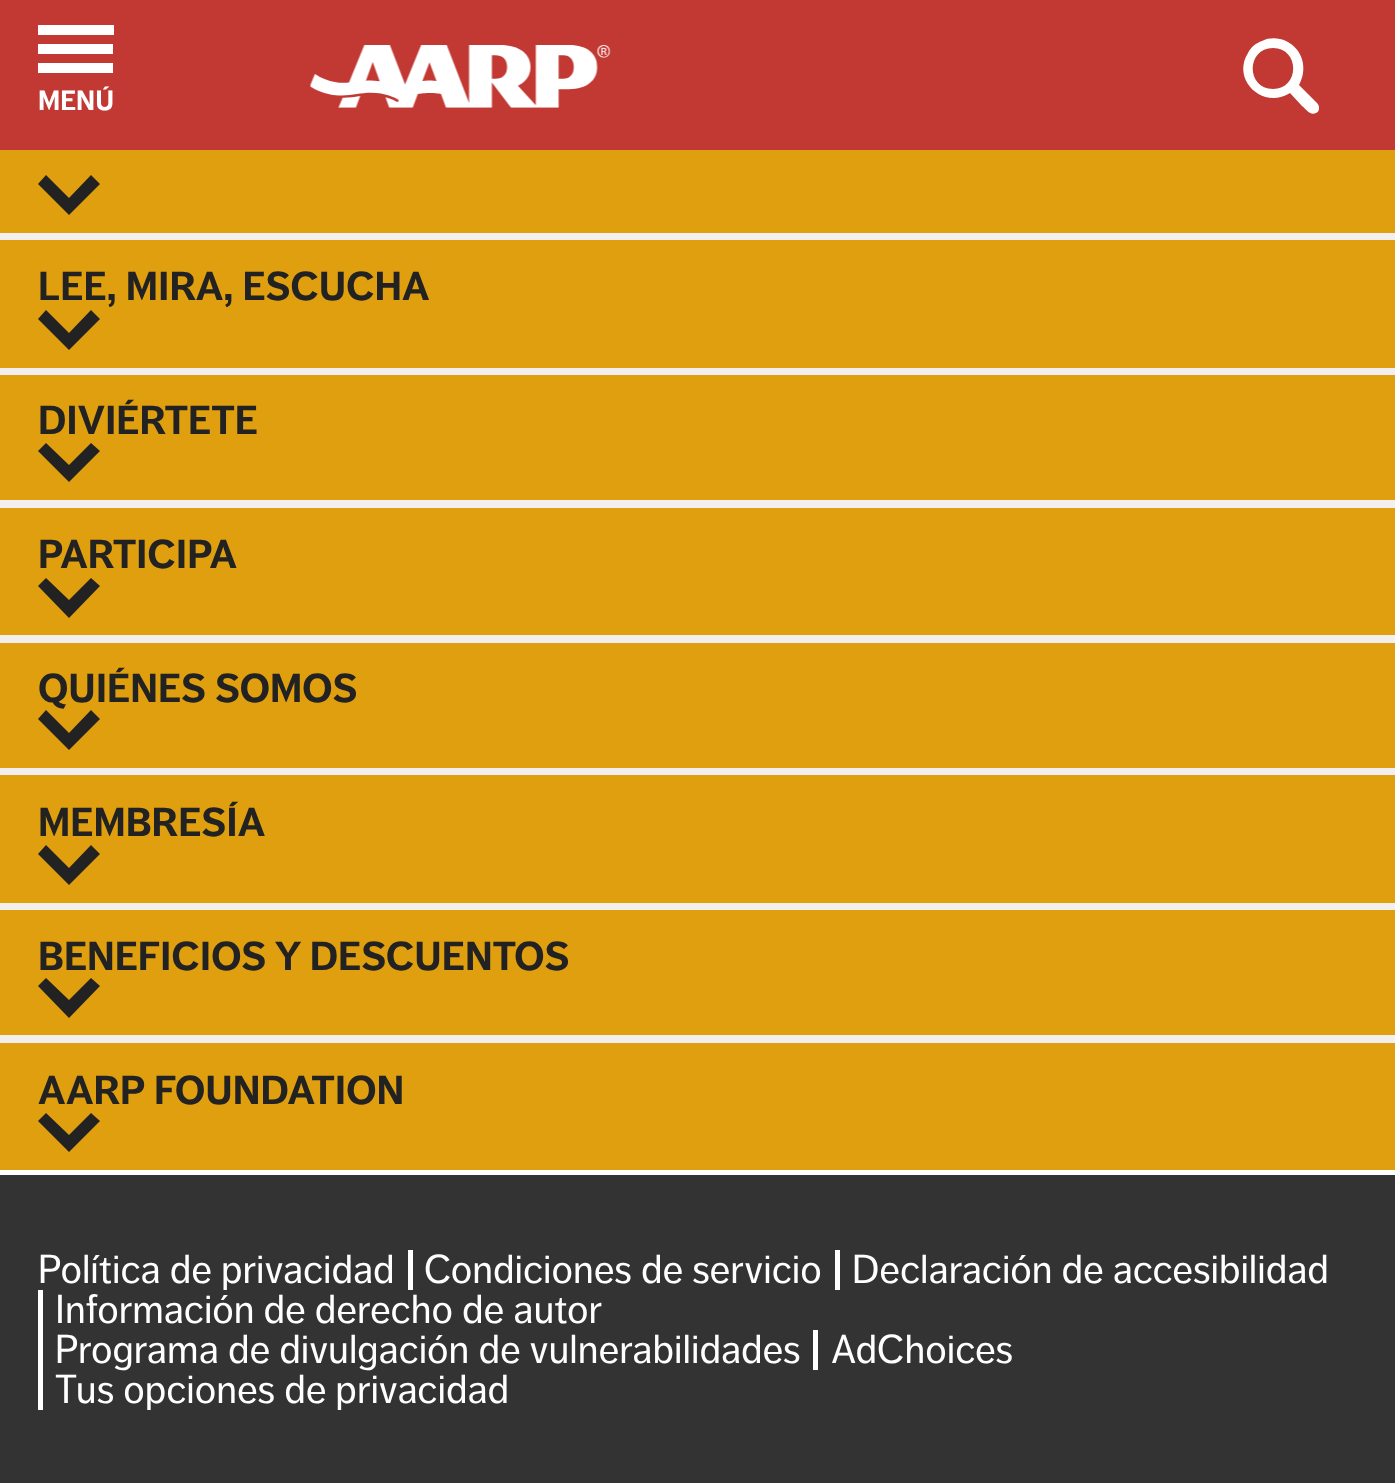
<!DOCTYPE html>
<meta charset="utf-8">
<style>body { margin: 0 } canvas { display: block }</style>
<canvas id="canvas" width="1395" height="1483"></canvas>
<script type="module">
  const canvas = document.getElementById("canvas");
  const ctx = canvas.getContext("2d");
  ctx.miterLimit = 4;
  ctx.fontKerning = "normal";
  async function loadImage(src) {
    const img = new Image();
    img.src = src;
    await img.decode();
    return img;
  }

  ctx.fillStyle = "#ffffff";
  ctx.fillRect(0, 0, 1395, 1483);
  ctx.fillStyle = "#c23934";
  ctx.fillRect(0, 0, 1395, 150);
  ctx.fillStyle = "#ffffff";
  ctx.beginPath();
  ctx.moveTo(114, 25);
  ctx.lineTo(114, 35);
  ctx.lineTo(38, 35);
  ctx.lineTo(38, 25);
  ctx.closePath();
  ctx.moveTo(38, 54);
  ctx.lineTo(113, 54);
  ctx.lineTo(113, 44);
  ctx.lineTo(38, 44);
  ctx.closePath();
  ctx.moveTo(38, 73);
  ctx.lineTo(113, 73);
  ctx.lineTo(113, 63);
  ctx.lineTo(38, 63);
  ctx.closePath();
  ctx.fill();
  ctx.font = "bold 27.5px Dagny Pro";
  ctx.fillText("MENÚ", 38, 110);
  ctx.drawImage(await loadImage("img1.png"), 310, 45, 301, 63);
  ctx.beginPath();
  ctx.moveTo(1317, 103);
  ctx.lineTo(1299, 85);
  ctx.bezierCurveTo(1308, 69, 1303, 49, 1286, 41);
  ctx.bezierCurveTo(1279, 38, 1270, 37, 1262, 41);
  ctx.bezierCurveTo(1256, 43, 1251, 47, 1248, 53);
  ctx.bezierCurveTo(1231, 80, 1263, 110, 1290, 93);
  ctx.lineTo(1302, 106);
  ctx.bezierCurveTo(1306, 109, 1310, 116, 1316, 113);
  ctx.bezierCurveTo(1318, 112, 1319, 111, 1319, 108);
  ctx.bezierCurveTo(1319, 107, 1319, 105, 1317, 103);
  ctx.closePath();
  ctx.moveTo(1273, 89);
  ctx.bezierCurveTo(1246, 89, 1246, 48, 1273, 48);
  ctx.bezierCurveTo(1300, 48, 1300, 89, 1273, 89);
  ctx.closePath();
  ctx.fill();
  ctx.fillStyle = "#f3efee";
  ctx.fillRect(0, 233, 1395, 810);
  ctx.fillStyle = "#df9f0f";
  ctx.fillRect(0, 150, 1395, 83);
  ctx.fillStyle = "#222222";
  ctx.beginPath();
  ctx.moveTo(69, 215);
  ctx.lineTo(100, 184);
  ctx.lineTo(91, 175);
  ctx.lineTo(69, 198);
  ctx.lineTo(46, 175);
  ctx.lineTo(38, 184);
  ctx.closePath();
  ctx.fill();
  ctx.fillStyle = "#df9f0f";
  ctx.fillRect(0, 240, 1395, 128);
  ctx.font = "bold 40px Dagny Pro";
  ctx.fillStyle = "#222222";
  ctx.fillText("LEE, MIRA, ESCUCHA", 38, 300);
  ctx.beginPath();
  ctx.moveTo(69, 350);
  ctx.lineTo(100, 319);
  ctx.lineTo(91, 310);
  ctx.lineTo(69, 333);
  ctx.lineTo(46, 310);
  ctx.lineTo(38, 319);
  ctx.closePath();
  ctx.fill();
  ctx.fillStyle = "#df9f0f";
  ctx.fillRect(0, 375, 1395, 125);
  ctx.fillStyle = "#222222";
  ctx.fillText("DIVIÉRTETE", 38, 434);
  ctx.beginPath();
  ctx.moveTo(69, 482);
  ctx.lineTo(100, 451);
  ctx.lineTo(91, 443);
  ctx.lineTo(69, 465);
  ctx.lineTo(46, 443);
  ctx.lineTo(38, 451);
  ctx.closePath();
  ctx.fill();
  ctx.fillStyle = "#df9f0f";
  ctx.fillRect(0, 508, 1395, 127);
  ctx.fillStyle = "#222222";
  ctx.fillText("PARTICIPA", 38, 568);
  ctx.beginPath();
  ctx.moveTo(69, 618);
  ctx.lineTo(100, 586);
  ctx.lineTo(91, 578);
  ctx.lineTo(69, 600);
  ctx.lineTo(46, 578);
  ctx.lineTo(38, 586);
  ctx.closePath();
  ctx.fill();
  ctx.fillStyle = "#df9f0f";
  ctx.fillRect(0, 643, 1395, 125);
  ctx.fillStyle = "#222222";
  ctx.fillText("QUIÉNES SOMOS", 38, 702);
  ctx.beginPath();
  ctx.moveTo(69, 750);
  ctx.lineTo(100, 719);
  ctx.lineTo(91, 710);
  ctx.lineTo(69, 733);
  ctx.lineTo(46, 710);
  ctx.lineTo(38, 719);
  ctx.closePath();
  ctx.fill();
  ctx.fillStyle = "#df9f0f";
  ctx.fillRect(0, 775, 1395, 128);
  ctx.fillStyle = "#222222";
  ctx.fillText("MEMBRESÍA", 38, 836);
  ctx.beginPath();
  ctx.moveTo(69, 885);
  ctx.lineTo(100, 854);
  ctx.lineTo(91, 845);
  ctx.lineTo(69, 868);
  ctx.lineTo(46, 845);
  ctx.lineTo(38, 854);
  ctx.closePath();
  ctx.fill();
  ctx.fillStyle = "#df9f0f";
  ctx.fillRect(0, 910, 1395, 125);
  ctx.fillStyle = "#222222";
  ctx.fillText("BENEFICIOS Y DESCUENTOS", 38, 970);
  ctx.beginPath();
  ctx.moveTo(69, 1018);
  ctx.lineTo(100, 986);
  ctx.lineTo(91, 978);
  ctx.lineTo(69, 1000);
  ctx.lineTo(46, 978);
  ctx.lineTo(38, 986);
  ctx.closePath();
  ctx.fill();
  ctx.fillStyle = "#df9f0f";
  ctx.fillRect(0, 1043, 1395, 127);
  ctx.fillStyle = "#222222";
  ctx.fillText("AARP FOUNDATION", 38, 1104);
  ctx.beginPath();
  ctx.moveTo(69, 1152);
  ctx.lineTo(100, 1121);
  ctx.lineTo(91, 1113);
  ctx.lineTo(69, 1135);
  ctx.lineTo(46, 1113);
  ctx.lineTo(38, 1121);
  ctx.closePath();
  ctx.fill();
  ctx.fillStyle = "#333333";
  ctx.fillRect(0, 1175, 1395, 308);
  ctx.font = "40px Dagny Pro";
  ctx.fillStyle = "#ffffff";
  ctx.fillText("Política de privacidad", 38, 1283);
  ctx.fillRect(408, 1250, 5, 40);
  ctx.fillText("Condiciones de servicio", 424, 1283);
  ctx.fillRect(835, 1250, 5, 40);
  ctx.fillText("Declaración de accesibilidad", 852, 1283);
  ctx.fillRect(38, 1290, 5, 120);
  ctx.fillText("Información de derecho de autor", 55, 1323);
  ctx.fillText("Programa de divulgación de vulnerabilidades", 55, 1363);
  ctx.fillRect(813, 1330, 5, 40);
  ctx.fillText("AdChoices", 831, 1363);
  ctx.fillText("Tus opciones de privacidad", 55, 1403);
</script>
